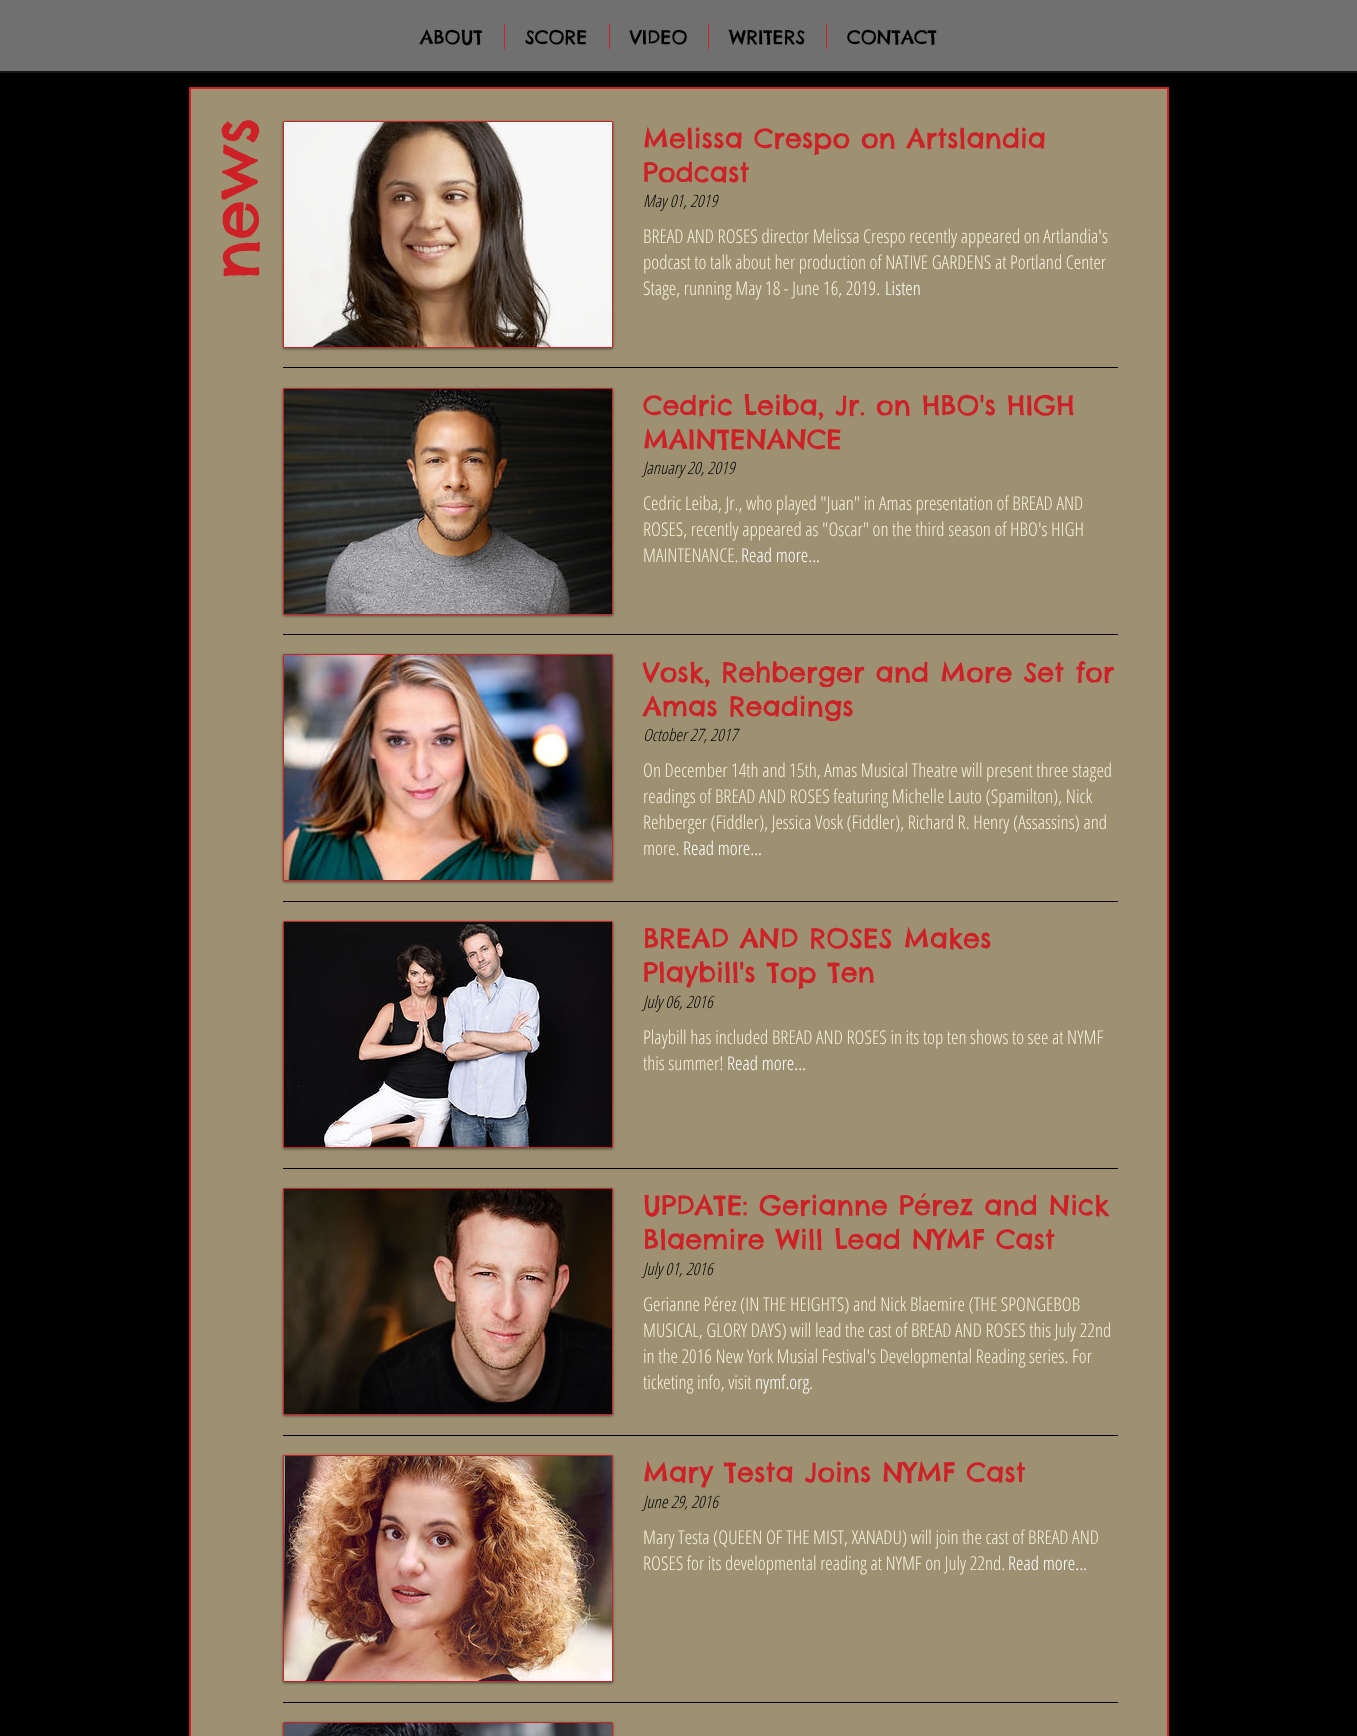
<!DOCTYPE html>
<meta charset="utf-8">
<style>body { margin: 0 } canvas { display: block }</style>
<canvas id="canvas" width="1357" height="1736"></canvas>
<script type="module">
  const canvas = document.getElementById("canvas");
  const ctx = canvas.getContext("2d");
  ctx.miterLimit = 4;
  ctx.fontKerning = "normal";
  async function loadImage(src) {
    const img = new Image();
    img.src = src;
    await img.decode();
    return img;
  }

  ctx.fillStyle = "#000000";
  ctx.fillRect(0, 0, 1357, 1736);
  ctx.fillStyle = "#171717";
  ctx.fillRect(0, 71, 1357, 2);
  ctx.fillStyle = "#707070";
  ctx.fillRect(0, 0, 1357, 71);
  ctx.font = "19px Chelsea Market";
  ctx.fillStyle = "#000000";
  ctx.fillText("ABOUT", 420, 44);
  ctx.fillStyle = "#cd2027";
  ctx.fillRect(504, 24, 1, 25);
  ctx.fillStyle = "#000000";
  ctx.fillText("SCORE", 525, 44);
  ctx.fillStyle = "#cd2027";
  ctx.fillRect(609, 24, 1, 25);
  ctx.fillStyle = "#000000";
  ctx.fillText("VIDEO", 630, 44);
  ctx.fillStyle = "#cd2027";
  ctx.fillRect(708, 24, 1, 25);
  ctx.fillStyle = "#000000";
  ctx.fillText("WRITERS", 729, 44);
  ctx.fillStyle = "#cd2027";
  ctx.fillRect(826, 24, 1, 25);
  ctx.fillStyle = "#000000";
  ctx.fillText("CONTACT", 847, 44);
  ctx.fillStyle = "#9d9172";
  ctx.beginPath();
  ctx.rect(190, 88, 978, 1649);
  ctx.fill();
  ctx.strokeStyle = "#cd2027";
  ctx.lineWidth = 2;
  ctx.stroke();
  ctx.font = "63px Chelsea Market";
  ctx.fillStyle = "#cd2027";
  ctx.save();
  ctx.translate(258, 280);
  ctx.rotate(-90 * Math.PI / 180);
  ctx.fillText("news", 0, 0);
  ctx.restore();
  ctx.fillStyle = "rgba(0, 0, 0, 0.5)";
  ctx.filter = "blur(1.5px)";
  ctx.beginPath();
  ctx.roundRect(283, 122, 330, 227, 1);
  ctx.fill();
  ctx.filter = "none";
  ctx.beginPath();
  ctx.roundRect(283.5, 121.5, 329, 226, 0.5);
  ctx.lineWidth = 1;
  ctx.stroke();
  ctx.drawImage(await loadImage("img1.png"), 284, 122, 328, 225);
  ctx.font = "27px Chelsea Market";
  ctx.fillStyle = "#cd2027";
  ctx.fillText("Melissa Crespo on Artslandia", 643, 148);
  ctx.fillText("Podcast", 643, 182);
  ctx.font = "italic 300 17px Open Sans Condensed";
  ctx.fillStyle = "#000000";
  ctx.fillText("May 01, 2019", 643, 207);
  ctx.font = "300 19px Open Sans Condensed";
  ctx.fillStyle = "#f7f0dd";
  ctx.fillText("BREAD AND ROSES director Melissa Crespo recently appeared on Artlandia's", 643, 243);
  ctx.fillText("podcast to talk about her production of NATIVE GARDENS at Portland Center", 643, 269);
  ctx.fillText("Stage, running May 18 - June 16, 2019.", 643, 295);
  ctx.fillStyle = "#ffffff";
  ctx.fillText("Listen", 885, 295);
  ctx.fillStyle = "#000000";
  ctx.fillRect(283, 367, 835, 1);
  ctx.fillStyle = "rgba(0, 0, 0, 0.5)";
  ctx.filter = "blur(1.5px)";
  ctx.beginPath();
  ctx.roundRect(283, 389, 330, 227, 1);
  ctx.fill();
  ctx.filter = "none";
  ctx.beginPath();
  ctx.roundRect(283.5, 388.5, 329, 226, 0.5);
  ctx.stroke();
  ctx.drawImage(await loadImage("img2.png"), 284, 389, 328, 225);
  ctx.font = "27px Chelsea Market";
  ctx.fillStyle = "#cd2027";
  ctx.fillText("Cedric Leiba, Jr. on HBO's HIGH", 643, 415);
  ctx.fillText("MAINTENANCE", 643, 449);
  ctx.font = "italic 300 17px Open Sans Condensed";
  ctx.fillStyle = "#000000";
  ctx.fillText("January 20, 2019", 643, 474);
  ctx.font = "300 19px Open Sans Condensed";
  ctx.fillStyle = "#f7f0dd";
  ctx.fillText("Cedric Leiba, Jr., who played \"Juan\" in Amas presentation of BREAD AND", 643, 510);
  ctx.fillText("ROSES, recently appeared as \"Oscar\" on the third season of HBO's HIGH", 643, 536);
  ctx.fillText("MAINTENANCE.", 643, 562);
  ctx.fillStyle = "#ffffff";
  ctx.fillText("Read more...", 741, 562);
  ctx.fillStyle = "#000000";
  ctx.fillRect(283, 634, 835, 1);
  ctx.fillStyle = "rgba(0, 0, 0, 0.5)";
  ctx.filter = "blur(1.5px)";
  ctx.beginPath();
  ctx.roundRect(283, 655, 330, 227, 1);
  ctx.fill();
  ctx.filter = "none";
  ctx.beginPath();
  ctx.roundRect(283.5, 654.5, 329, 226, 0.5);
  ctx.stroke();
  ctx.drawImage(await loadImage("img3.png"), 284, 655, 328, 225);
  ctx.font = "27px Chelsea Market";
  ctx.fillStyle = "#cd2027";
  ctx.fillText("Vosk, Rehberger and More Set for", 643, 682);
  ctx.fillText("Amas Readings", 643, 716);
  ctx.font = "italic 300 17px Open Sans Condensed";
  ctx.fillStyle = "#000000";
  ctx.fillText("October 27, 2017", 643, 741);
  ctx.font = "300 19px Open Sans Condensed";
  ctx.fillStyle = "#f7f0dd";
  ctx.fillText("On December 14th and 15th, Amas Musical Theatre will present three staged", 643, 777);
  ctx.fillText("readings of BREAD AND ROSES featuring Michelle Lauto (Spamilton), Nick", 643, 803);
  ctx.fillText("Rehberger (Fiddler), Jessica Vosk (Fiddler), Richard R. Henry (Assassins) and", 643, 829);
  ctx.fillText("more.", 643, 855);
  ctx.fillStyle = "#ffffff";
  ctx.fillText("Read more...", 683, 855);
  ctx.fillStyle = "#000000";
  ctx.fillRect(283, 901, 835, 1);
  ctx.fillStyle = "rgba(0, 0, 0, 0.5)";
  ctx.filter = "blur(1.5px)";
  ctx.beginPath();
  ctx.roundRect(283, 922, 330, 227, 1);
  ctx.fill();
  ctx.filter = "none";
  ctx.beginPath();
  ctx.roundRect(283.5, 921.5, 329, 226, 0.5);
  ctx.stroke();
  ctx.drawImage(await loadImage("img4.png"), 284, 922, 328, 225);
  ctx.font = "27px Chelsea Market";
  ctx.fillStyle = "#cd2027";
  ctx.fillText("BREAD AND ROSES Makes", 643, 948);
  ctx.fillText("Playbill's Top Ten", 643, 982);
  ctx.font = "italic 300 17px Open Sans Condensed";
  ctx.fillStyle = "#000000";
  ctx.fillText("July 06, 2016", 643, 1008);
  ctx.font = "300 19px Open Sans Condensed";
  ctx.fillStyle = "#f7f0dd";
  ctx.fillText("Playbill has included BREAD AND ROSES in its top ten shows to see at NYMF", 643, 1044);
  ctx.fillText("this summer!", 643, 1070);
  ctx.fillStyle = "#ffffff";
  ctx.fillText("Read more...", 727, 1070);
  ctx.fillStyle = "#000000";
  ctx.fillRect(283, 1168, 835, 1);
  ctx.fillStyle = "rgba(0, 0, 0, 0.5)";
  ctx.filter = "blur(1.5px)";
  ctx.beginPath();
  ctx.roundRect(283, 1189, 330, 227, 1);
  ctx.fill();
  ctx.filter = "none";
  ctx.beginPath();
  ctx.roundRect(283.5, 1188.5, 329, 226, 0.5);
  ctx.stroke();
  ctx.drawImage(await loadImage("img5.png"), 284, 1189, 328, 225);
  ctx.font = "27px Chelsea Market";
  ctx.fillStyle = "#cd2027";
  ctx.fillText("UPDATE: Gerianne Pérez and Nick", 643, 1215);
  ctx.fillText("Blaemire Will Lead NYMF Cast", 643, 1249);
  ctx.font = "italic 300 17px Open Sans Condensed";
  ctx.fillStyle = "#000000";
  ctx.fillText("July 01, 2016", 643, 1275);
  ctx.font = "300 19px Open Sans Condensed";
  ctx.fillStyle = "#f7f0dd";
  ctx.fillText("Gerianne Pérez (IN THE HEIGHTS) and Nick Blaemire (THE SPONGEBOB", 643, 1311);
  ctx.fillText("MUSICAL, GLORY DAYS) will lead the cast of BREAD AND ROSES this July 22nd", 643, 1337);
  ctx.fillText("in the 2016 New York Musial Festival's Developmental Reading series. For", 643, 1363);
  ctx.fillText("ticketing info, visit", 643, 1389);
  ctx.fillStyle = "#ffffff";
  ctx.fillText("nymf.org", 755, 1389);
  ctx.fillStyle = "#f7f0dd";
  ctx.fillText(".", 809, 1389);
  ctx.fillStyle = "#000000";
  ctx.fillRect(283, 1435, 835, 1);
  ctx.fillStyle = "rgba(0, 0, 0, 0.5)";
  ctx.filter = "blur(1.5px)";
  ctx.beginPath();
  ctx.roundRect(283, 1456, 330, 227, 1);
  ctx.fill();
  ctx.filter = "none";
  ctx.beginPath();
  ctx.roundRect(283.5, 1455.5, 329, 226, 0.5);
  ctx.stroke();
  ctx.drawImage(await loadImage("img6.png"), 284, 1456, 328, 225);
  ctx.font = "27px Chelsea Market";
  ctx.fillStyle = "#cd2027";
  ctx.fillText("Mary Testa Joins NYMF Cast", 643, 1482);
  ctx.font = "italic 300 17px Open Sans Condensed";
  ctx.fillStyle = "#000000";
  ctx.fillText("June 29, 2016", 643, 1508);
  ctx.font = "300 19px Open Sans Condensed";
  ctx.fillStyle = "#f7f0dd";
  ctx.fillText("Mary Testa (QUEEN OF THE MIST, XANADU) will join the cast of BREAD AND", 643, 1544);
  ctx.fillText("ROSES for its developmental reading at NYMF on July 22nd.", 643, 1570);
  ctx.fillStyle = "#ffffff";
  ctx.fillText("Read more...", 1008, 1570);
  ctx.fillStyle = "#000000";
  ctx.fillRect(283, 1702, 835, 1);
  ctx.fillStyle = "rgba(0, 0, 0, 0.5)";
  ctx.filter = "blur(1.5px)";
  ctx.beginPath();
  ctx.roundRect(283, 1723, 330, 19, 1);
  ctx.fill();
  ctx.filter = "none";
  ctx.beginPath();
  ctx.roundRect(283.5, 1722.5, 329, 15, 0.5);
  ctx.stroke();
  ctx.drawImage(await loadImage("img7.png"), 284, 1723, 328, 13);
</script>
